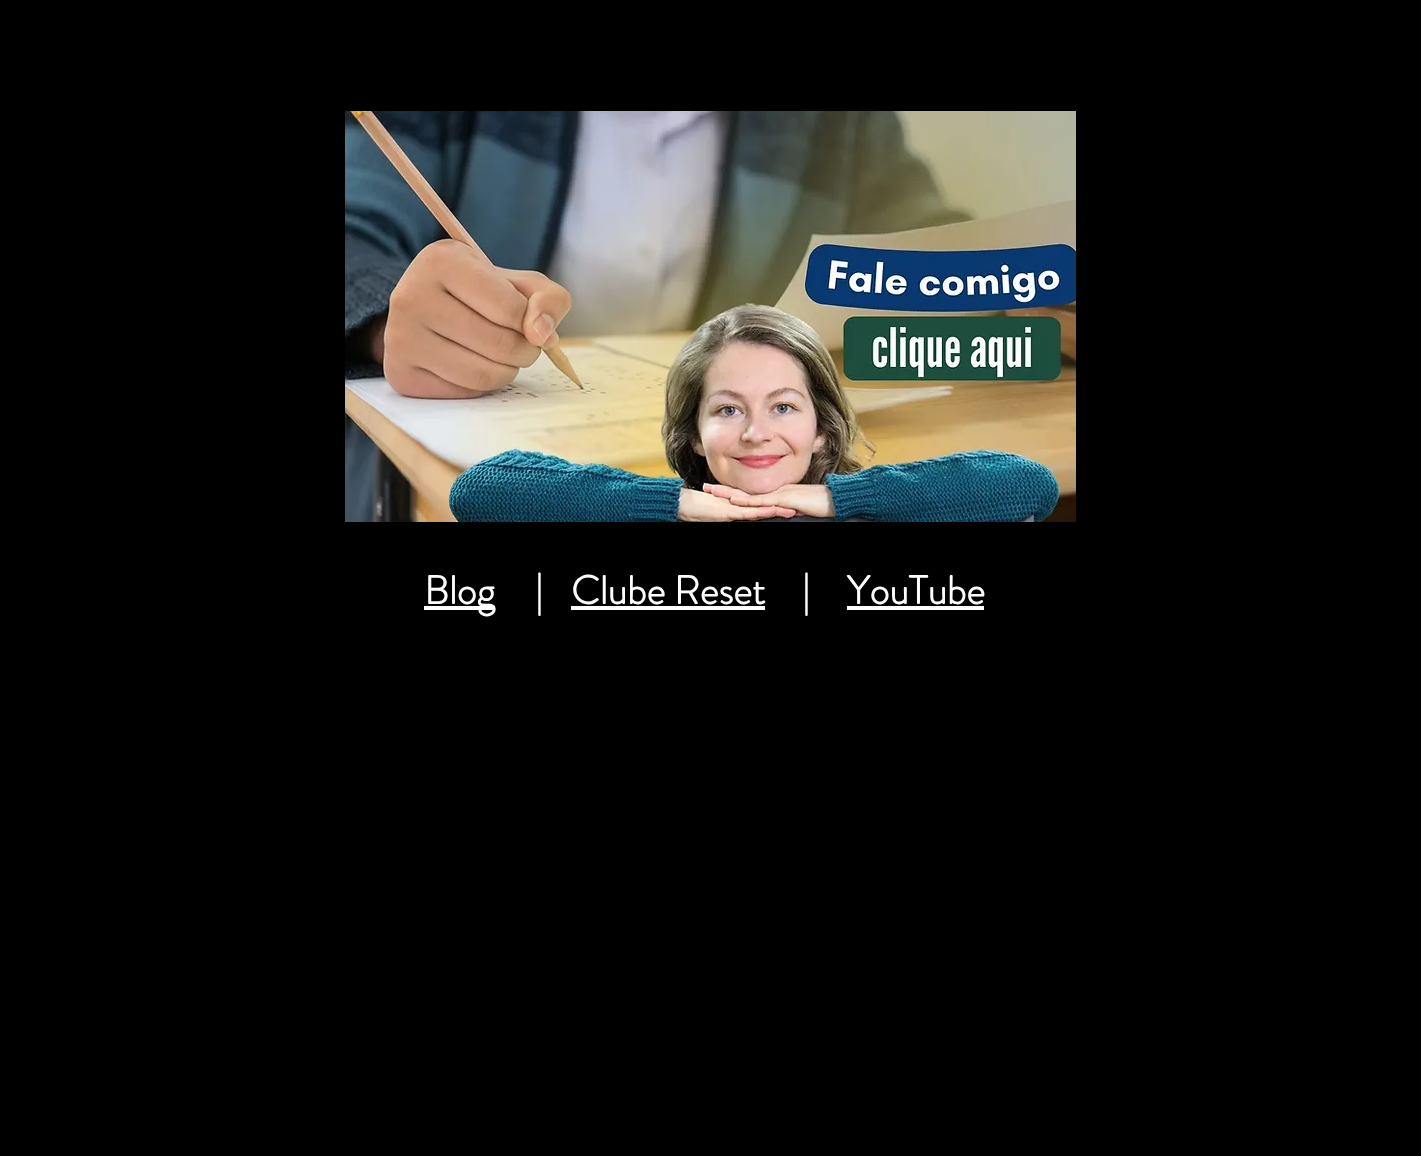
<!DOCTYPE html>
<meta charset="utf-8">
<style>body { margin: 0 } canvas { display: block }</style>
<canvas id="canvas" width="1421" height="1156"></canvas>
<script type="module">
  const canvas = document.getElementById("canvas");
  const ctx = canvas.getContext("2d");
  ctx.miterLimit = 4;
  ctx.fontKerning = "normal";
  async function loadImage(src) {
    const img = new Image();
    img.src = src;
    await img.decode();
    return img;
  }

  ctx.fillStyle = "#000000";
  ctx.fillRect(0, 0, 1421, 1156);
  ctx.drawImage(await loadImage("img1.png"), 345, 111, 731, 411);
  ctx.fillStyle = "#fdfdfd";
  ctx.fillRect(424, 606, 71, 4);
  ctx.font = "bold 40px 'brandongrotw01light'";
  ctx.fillText("Blog", 424, 604);
  ctx.fillText("|", 535, 604);
  ctx.fillText("Clube Reset", 571, 604);
  ctx.fillRect(571, 606, 194, 4);
  ctx.fillText("|", 802, 604);
  ctx.fillText("YouTube", 847, 604);
  ctx.fillRect(847, 606, 137, 4);
</script>
